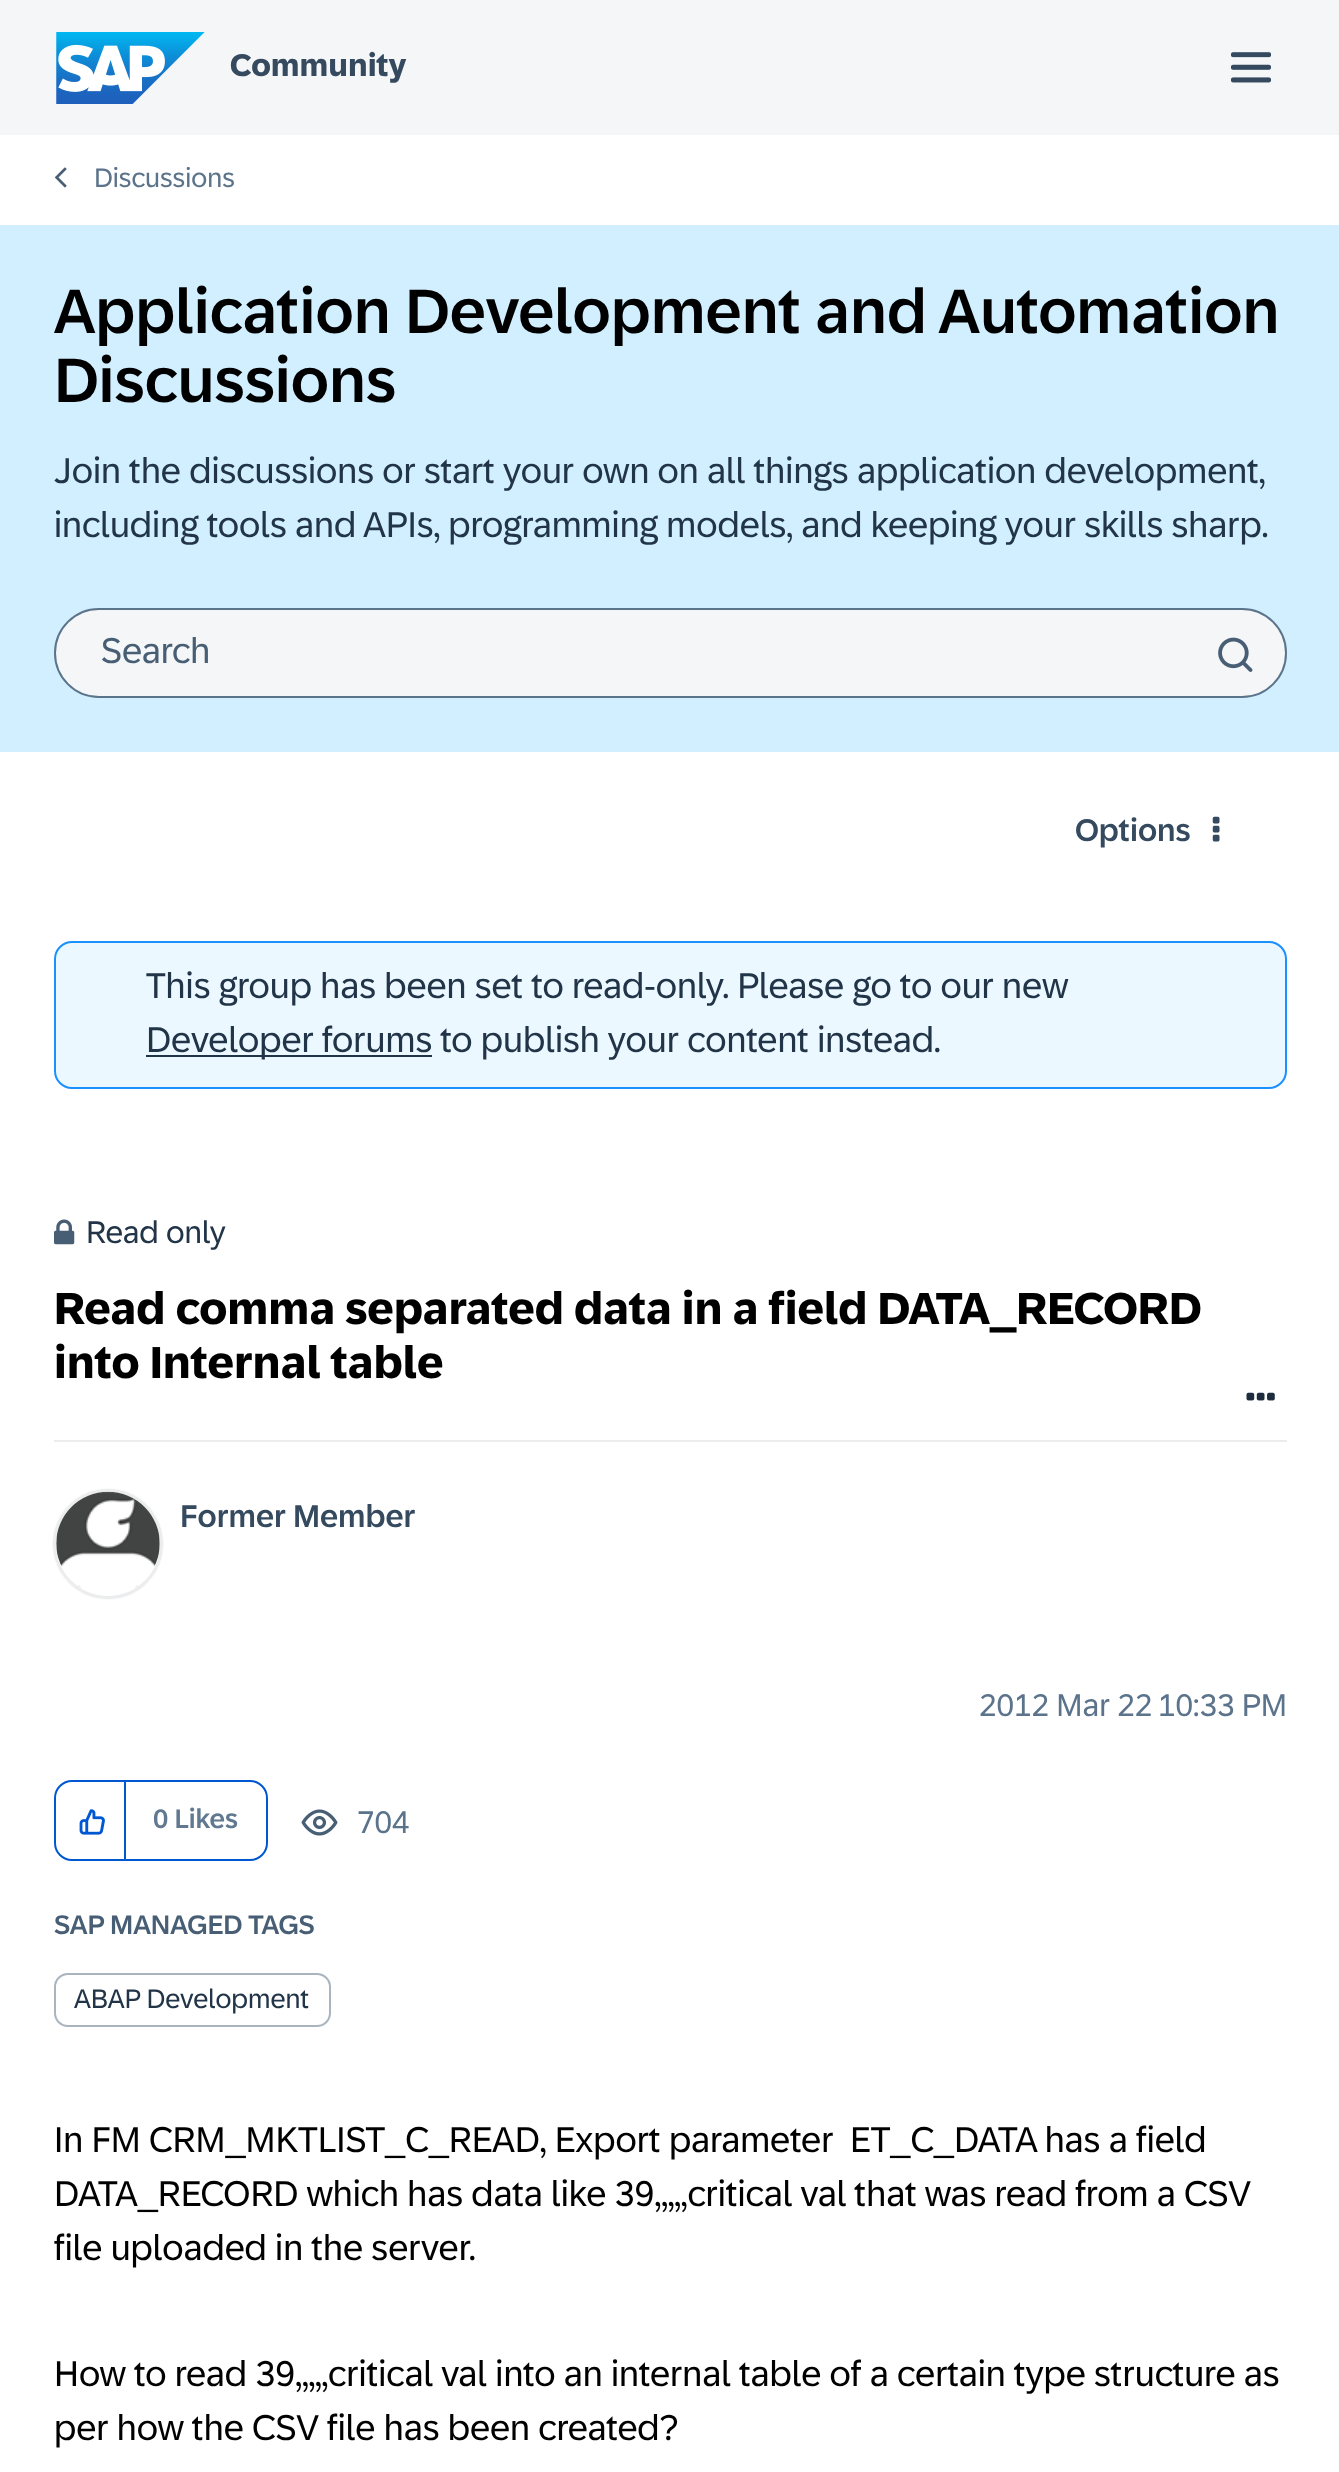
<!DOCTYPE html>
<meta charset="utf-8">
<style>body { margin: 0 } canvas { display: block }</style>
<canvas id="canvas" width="1339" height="2472"></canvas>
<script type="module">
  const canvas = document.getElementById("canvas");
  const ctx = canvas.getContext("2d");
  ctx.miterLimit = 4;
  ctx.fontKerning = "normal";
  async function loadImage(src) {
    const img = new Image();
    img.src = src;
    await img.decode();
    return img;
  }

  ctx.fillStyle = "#ffffff";
  ctx.fillRect(0, 0, 1339, 2472);
  ctx.fillStyle = "#f5f6f7";
  ctx.fillRect(0, 0, 1339, 135);
  ctx.drawImage(await loadImage("img1.png"), 56, 32, 149, 72);
  ctx.font = "bold 31.5px '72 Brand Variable'";
  ctx.fillStyle = "#354a5f";
  ctx.fillText("Community", 230, 76);
  ctx.drawImage(await loadImage("img2.png"), 1231, 52, 40, 31);
  ctx.drawImage(await loadImage("img3.png"), 54, 167, 13, 21);
  ctx.font = "27px '72 Brand Variable'";
  ctx.fillStyle = "#5b738b";
  ctx.fillText("Discussions", 94, 187);
  ctx.fillStyle = "#d1efff";
  ctx.fillRect(0, 225, 1339, 527);
  ctx.font = "500 63px '72 Brand Variable'";
  ctx.fillStyle = "#000000";
  ctx.fillText("Application Development and Automation", 54, 333);
  ctx.fillText("Discussions", 54, 402);
  ctx.font = "36px '72 Brand Variable'";
  ctx.fillStyle = "#223548";
  ctx.fillText("Join the discussions or start your own on all things application development,", 54, 483);
  ctx.fillText("including tools and APIs, programming models, and keeping your skills sharp.", 54, 537);
  ctx.fillStyle = "#f5f6f7";
  ctx.beginPath();
  ctx.roundRect(55, 609, 1231, 88, 44);
  ctx.fill();
  ctx.strokeStyle = "#5b738b";
  ctx.lineWidth = 2;
  ctx.stroke();
  ctx.fillStyle = "#475e75";
  ctx.fillText("Search", 101, 663);
  ctx.drawImage(await loadImage("img4.png"), 1218, 637, 35, 35);
  ctx.font = "500 31.5px '72 Brand Variable'";
  ctx.fillStyle = "#354a5f";
  ctx.fillText("Options", 1075, 841);
  ctx.drawImage(await loadImage("img5.png"), 1212, 816, 8, 26);
  ctx.fillStyle = "#ebf8ff";
  ctx.beginPath();
  ctx.roundRect(55, 942, 1231, 146, 17);
  ctx.fill();
  ctx.strokeStyle = "#1b90ff";
  ctx.stroke();
  ctx.font = "36px '72 Brand Variable'";
  ctx.fillStyle = "#223548";
  ctx.fillText("This group has been set to read-only. Please go to our new", 146, 998);
  ctx.fillRect(146, 1055, 286, 2);
  ctx.fillText("Developer forums to publish your content instead.", 146, 1052);
  ctx.fillStyle = "#eaecee";
  ctx.fillRect(54, 1440, 1233, 2);
  ctx.drawImage(await loadImage("img6.png"), 54, 1219, 21, 26);
  ctx.font = "31.5px '72 Brand Variable'";
  ctx.fillStyle = "#223548";
  ctx.fillText("Read only", 86, 1243);
  ctx.font = "bold 45px '72 Brand Variable'";
  ctx.fillStyle = "#000000";
  ctx.fillText("Read comma separated data in a field DATA_RECORD", 54, 1324);
  ctx.fillText("into Internal table", 54, 1378);
  ctx.save();
  ctx.beginPath();
  ctx.moveTo(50, 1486);
  ctx.lineTo(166, 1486);
  ctx.lineTo(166, 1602);
  ctx.lineTo(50, 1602);
  ctx.closePath();
  ctx.moveTo(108, 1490);
  ctx.bezierCurveTo(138, 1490, 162, 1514, 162, 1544);
  ctx.bezierCurveTo(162, 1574, 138, 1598, 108, 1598);
  ctx.bezierCurveTo(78, 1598, 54, 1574, 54, 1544);
  ctx.bezierCurveTo(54, 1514, 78, 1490, 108, 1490);
  ctx.closePath();
  ctx.clip("evenodd");
  ctx.fillStyle = "#c4c4c4";
  ctx.filter = "blur(1px)";
  ctx.beginPath();
  ctx.roundRect(54, 1490, 108, 108, 54);
  ctx.fill();
  ctx.filter = "none";
  ctx.restore();
  ctx.beginPath();
  ctx.arc(108, 1544, 53, 0, Math.PI * 2);
  ctx.strokeStyle = "#eaecee";
  ctx.stroke();
  ctx.drawImage(await loadImage("img7.png"), 56, 1491, 104, 97);
  ctx.font = "500 31.5px '72 Brand Variable'";
  ctx.fillStyle = "#354a5f";
  ctx.fillText("Former Member", 180, 1527);
  ctx.drawImage(await loadImage("img8.png"), 1246, 1392, 29, 9);
  ctx.font = "31.5px '72 Brand Variable'";
  ctx.fillStyle = "#5b738b";
  ctx.fillText("2012 Mar 22", 979, 1716);
  ctx.fillText("10:33 PM", 1158, 1716);
  ctx.beginPath();
  ctx.roundRect(55, 1781, 212, 79, 17);
  ctx.strokeStyle = "#0057d2";
  ctx.stroke();
  ctx.fillStyle = "#0057d2";
  ctx.fillRect(124, 1782, 2, 79);
  ctx.drawImage(await loadImage("img9.png"), 79, 1809, 26, 26);
  ctx.font = "500 27px '72 Brand Variable'";
  ctx.fillStyle = "#617990";
  ctx.fillText("0 Likes", 153, 1828);
  ctx.drawImage(await loadImage("img10.png"), 301, 1809, 37, 27);
  ctx.font = "31.5px '72 Brand Variable'";
  ctx.fillStyle = "#5b738b";
  ctx.fillText("704", 357, 1833);
  ctx.font = "500 27px '72 Brand Variable'";
  ctx.fillStyle = "#475e75";
  ctx.fillText("SAP MANAGED TAGS", 54, 1934);
  ctx.beginPath();
  ctx.roundRect(55, 1974, 275, 52, 13);
  ctx.strokeStyle = "#a9b4be";
  ctx.stroke();
  ctx.font = "27px '72 Brand Variable'";
  ctx.fillStyle = "#223548";
  ctx.fillText("ABAP Development", 74, 2008);
  ctx.font = "36px '72 Brand Variable'";
  ctx.fillStyle = "#000000";
  ctx.fillText("In FM CRM_MKTLIST_C_READ, Export parameter  ET_C_DATA has a field", 54, 2152);
  ctx.fillText("DATA_RECORD which has data like 39,,,,,critical val that was read from a CSV", 54, 2206);
  ctx.fillText("file uploaded in the server.", 54, 2260);
  ctx.fillText("How to read 39,,,,,critical val into an internal table of a certain type structure as", 54, 2386);
  ctx.fillText("per how the CSV file has been created?", 54, 2440);
</script>
